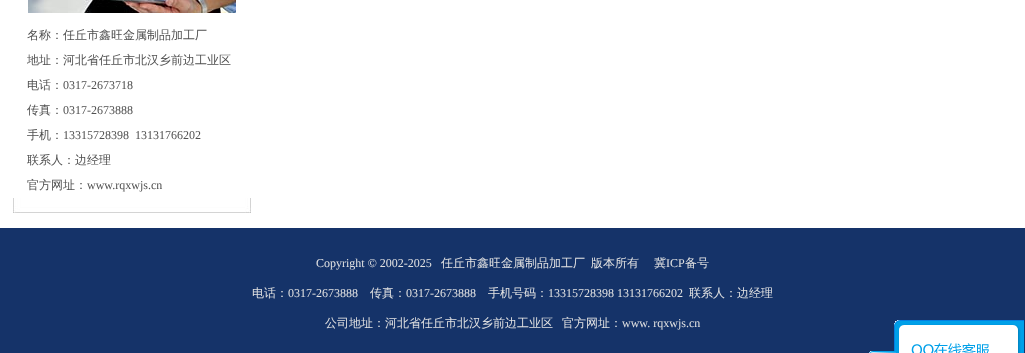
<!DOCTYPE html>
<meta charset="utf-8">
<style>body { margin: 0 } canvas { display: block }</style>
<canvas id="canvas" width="1025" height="353"></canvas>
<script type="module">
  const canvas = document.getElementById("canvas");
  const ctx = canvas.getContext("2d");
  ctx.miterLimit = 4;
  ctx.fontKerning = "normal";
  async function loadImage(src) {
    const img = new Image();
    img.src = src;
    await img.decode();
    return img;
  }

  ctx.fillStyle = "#ffffff";
  ctx.fillRect(0, 0, 1025, 353);
  ctx.drawImage(await loadImage("img1.png"), 28, 0, 208, 13);
  ctx.font = "500 12px WenQuanYi Zen Hei";
  ctx.fillStyle = "#505050";
  ctx.fillText("名称：任丘市鑫旺金属制品加工厂", 27, 39);
  ctx.fillText("地址：河北省任丘市北汉乡前边工业区", 27, 64);
  ctx.fillText("电话：", 27, 89);
  ctx.font = "12px Liberation Serif";
  ctx.fillText("0317-2673718", 63, 89);
  ctx.font = "500 12px WenQuanYi Zen Hei";
  ctx.fillText("传真：", 27, 114);
  ctx.font = "12px Liberation Serif";
  ctx.fillText("0317-2673888", 63, 114);
  ctx.font = "500 12px WenQuanYi Zen Hei";
  ctx.fillText("手机：", 27, 139);
  ctx.font = "12px Liberation Serif";
  ctx.fillText("13315728398  13131766202", 63, 139);
  ctx.font = "500 12px WenQuanYi Zen Hei";
  ctx.fillText("联系人：边经理", 27, 164);
  ctx.fillText("官方网址：", 27, 189);
  ctx.font = "12px Liberation Serif";
  ctx.fillText("www.rqxwjs.cn", 87, 189);
  ctx.drawImage(await loadImage("img2.png"), 13, 198, 238, 15);
  ctx.fillStyle = "#153369";
  ctx.fillRect(0, 228, 1025, 125);
  ctx.fillStyle = "#e2e2e2";
  ctx.fillText("Copyright © 2002-2025", 316, 267);
  ctx.font = "500 12px WenQuanYi Zen Hei";
  ctx.fillText("任丘市鑫旺金属制品加工厂", 441, 267);
  ctx.fillText("版本所有", 591, 267);
  ctx.fillText("冀", 654, 267);
  ctx.font = "12px Liberation Serif";
  ctx.fillText("ICP", 666, 267);
  ctx.font = "500 12px WenQuanYi Zen Hei";
  ctx.fillText("备号", 685, 267);
  ctx.fillText("电话：", 252, 297);
  ctx.font = "12px Liberation Serif";
  ctx.fillText("0317-2673888", 288, 297);
  ctx.font = "500 12px WenQuanYi Zen Hei";
  ctx.fillText("传真：", 370, 297);
  ctx.font = "12px Liberation Serif";
  ctx.fillText("0317-2673888", 406, 297);
  ctx.font = "500 12px WenQuanYi Zen Hei";
  ctx.fillText("手机号码：", 488, 297);
  ctx.font = "12px Liberation Serif";
  ctx.fillText("13315728398 13131766202", 548, 297);
  ctx.font = "500 12px WenQuanYi Zen Hei";
  ctx.fillText("联系人：边经理", 689, 297);
  ctx.fillText("公司地址：河北省任丘市北汉乡前边工业区", 325, 327);
  ctx.fillText("官方网址：", 562, 327);
  ctx.font = "12px Liberation Serif";
  ctx.fillText("www. rqxwjs.cn", 622, 327);
  ctx.drawImage(await loadImage("img5.png"), 894, 330, 130, 23);
  ctx.drawImage(await loadImage("img3.png"), 869, 351, 27, 2);
  ctx.drawImage(await loadImage("img4.png"), 894, 320, 130, 10);
  ctx.drawImage(await loadImage("img6.png"), 911, 343, 78, 10);
</script>
